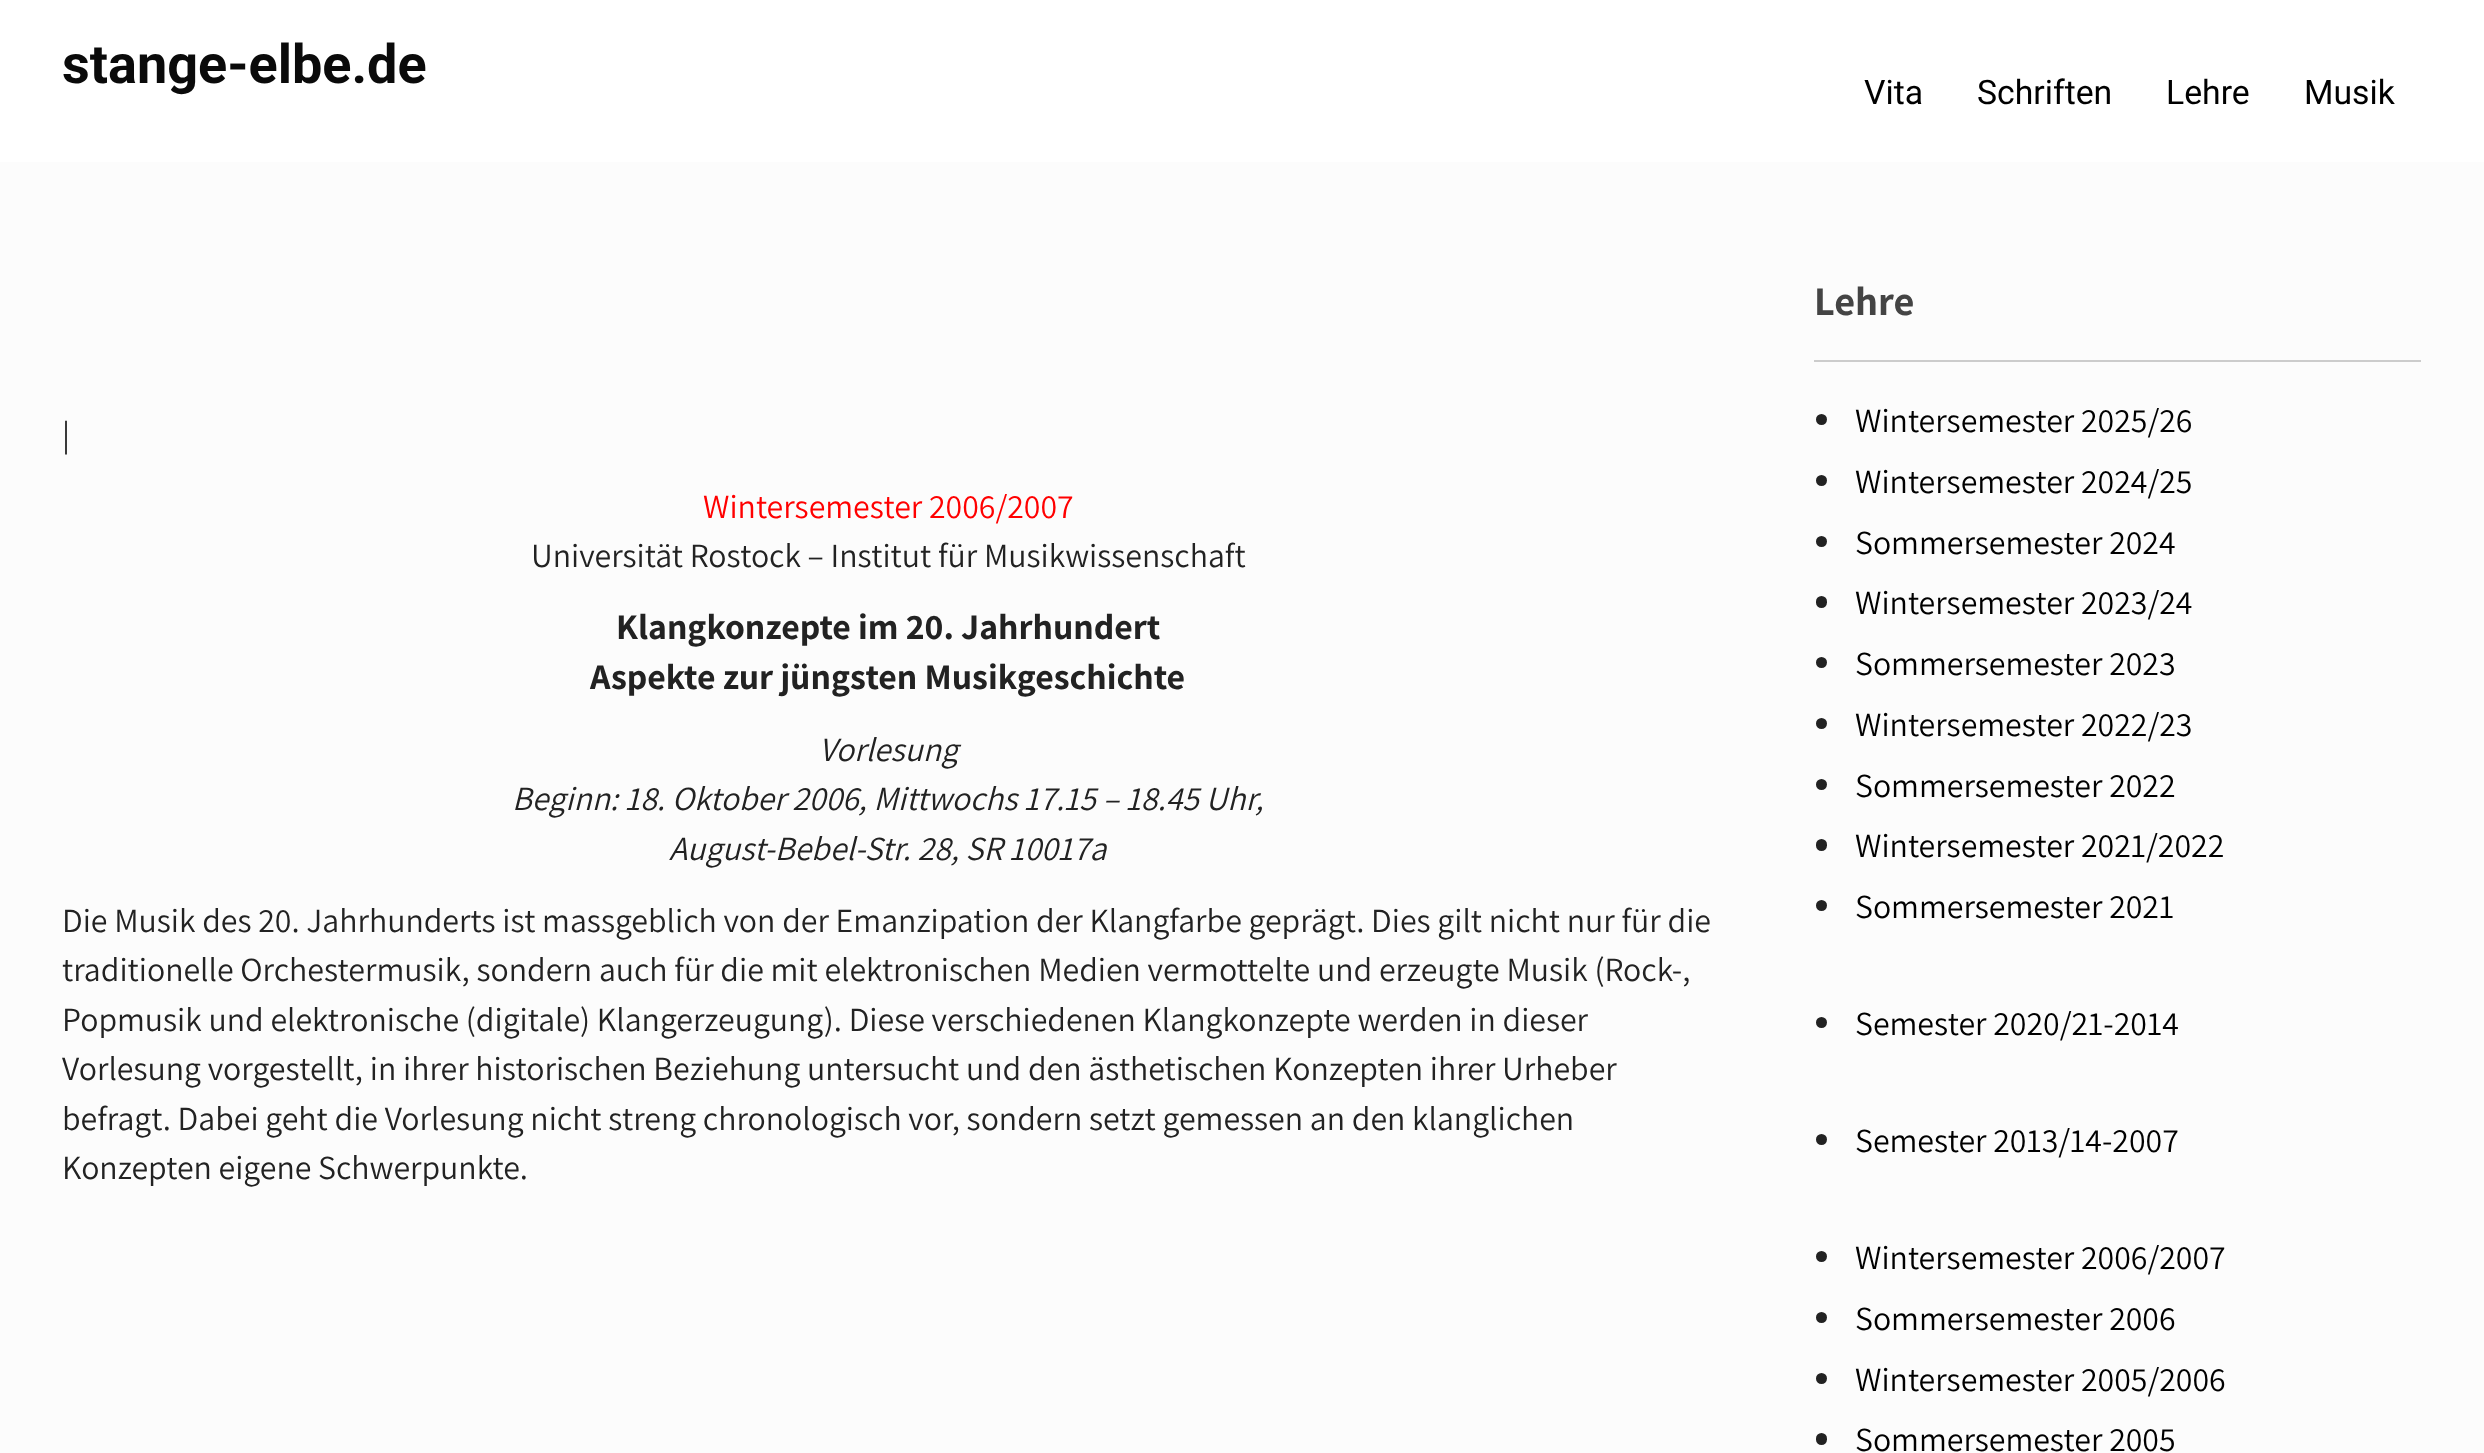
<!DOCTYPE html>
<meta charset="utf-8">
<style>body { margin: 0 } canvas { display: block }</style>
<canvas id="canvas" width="2484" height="1453"></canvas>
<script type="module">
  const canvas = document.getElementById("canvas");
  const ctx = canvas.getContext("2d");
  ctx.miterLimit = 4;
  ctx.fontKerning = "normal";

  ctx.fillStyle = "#fcfcfc";
  ctx.fillRect(0, 0, 2484, 1453);
  ctx.fillStyle = "#ffffff";
  ctx.fillRect(0, 0, 2484, 162);
  ctx.font = "bold 54px Roboto";
  ctx.fillStyle = "#0a0a0a";
  ctx.fillText("stange-elbe.de", 62, 83);
  ctx.font = "33.75px Roboto";
  ctx.fillStyle = "#000000";
  ctx.fillText("Vita", 1864, 104);
  ctx.fillText("Schriften", 1977, 104);
  ctx.fillText("Lehre", 2166, 104);
  ctx.fillText("Musik", 2304, 104);
  ctx.font = "33.75px Assistant";
  ctx.fillStyle = "#222222";
  ctx.fillText("|", 62, 446);
  ctx.fillStyle = "#ff0000";
  ctx.fillText("Wintersemester 2006/2007", 703, 518);
  ctx.fillStyle = "#222222";
  ctx.fillText("Universität Rostock – Institut für Musikwissenschaft", 531, 567);
  ctx.font = "bold 36px Assistant";
  ctx.fillText("Klangkonzepte im 20. Jahrhundert", 616, 639);
  ctx.fillText("Aspekte zur jüngsten Musikgeschichte", 590, 689);
  ctx.font = "italic 33.75px Assistant";
  ctx.fillText("Vorlesung", 819, 761);
  ctx.fillText("Beginn: 18. Oktober 2006, Mittwochs 17.15 – 18.45 Uhr,", 512, 810);
  ctx.fillText("August-Bebel-Str. 28, SR 10017a", 669, 860);
  ctx.font = "33.75px Assistant";
  ctx.fillText("Die Musik des 20. Jahrhunderts ist massgeblich von der Emanzipation der Klangfarbe geprägt. Dies gilt nicht nur für die", 62, 932);
  ctx.fillText("traditionelle Orchestermusik, sondern auch für die mit elektronischen Medien vermottelte und erzeugte Musik (Rock-,", 62, 981);
  ctx.fillText("Popmusik und elektronische (digitale) Klangerzeugung). Diese verschiedenen Klangkonzepte werden in dieser", 62, 1031);
  ctx.fillText("Vorlesung vorgestellt, in ihrer historischen Beziehung untersucht und den ästhetischen Konzepten ihrer Urheber", 62, 1080);
  ctx.fillText("befragt. Dabei geht die Vorlesung nicht streng chronologisch vor, sondern setzt gemessen an den klanglichen", 62, 1130);
  ctx.fillText("Konzepten eigene Schwerpunkte.", 62, 1179);
  ctx.fillStyle = "#cccccc";
  ctx.fillRect(1814, 360, 607, 2);
  ctx.font = "bold 40.5px Assistant";
  ctx.fillStyle = "#444444";
  ctx.fillText("Lehre", 1814, 315);
  ctx.fillStyle = "#222222";
  ctx.beginPath();
  ctx.arc(1821.5, 419.5, 5.5, 0, Math.PI * 2);
  ctx.fill();
  ctx.font = "33.75px Assistant";
  ctx.fillStyle = "#000000";
  ctx.fillText("Wintersemester 2025/26", 1855, 432);
  ctx.fillStyle = "#222222";
  ctx.beginPath();
  ctx.arc(1821.5, 480.5, 5.5, 0, Math.PI * 2);
  ctx.fill();
  ctx.fillStyle = "#000000";
  ctx.fillText("Wintersemester 2024/25", 1855, 493);
  ctx.fillStyle = "#222222";
  ctx.beginPath();
  ctx.arc(1821.5, 541.5, 5.5, 0, Math.PI * 2);
  ctx.fill();
  ctx.fillStyle = "#000000";
  ctx.fillText("Sommersemester 2024", 1855, 554);
  ctx.fillStyle = "#222222";
  ctx.beginPath();
  ctx.roundRect(1816, 596, 11, 12, 5.5);
  ctx.fill();
  ctx.fillStyle = "#000000";
  ctx.fillText("Wintersemester 2023/24", 1855, 614);
  ctx.fillStyle = "#222222";
  ctx.beginPath();
  ctx.arc(1821.5, 662.5, 5.5, 0, Math.PI * 2);
  ctx.fill();
  ctx.fillStyle = "#000000";
  ctx.fillText("Sommersemester 2023", 1855, 675);
  ctx.fillStyle = "#222222";
  ctx.beginPath();
  ctx.arc(1821.5, 723.5, 5.5, 0, Math.PI * 2);
  ctx.fill();
  ctx.fillStyle = "#000000";
  ctx.fillText("Wintersemester 2022/23", 1855, 736);
  ctx.fillStyle = "#222222";
  ctx.beginPath();
  ctx.arc(1821.5, 784.5, 5.5, 0, Math.PI * 2);
  ctx.fill();
  ctx.fillStyle = "#000000";
  ctx.fillText("Sommersemester 2022", 1855, 797);
  ctx.fillStyle = "#222222";
  ctx.beginPath();
  ctx.roundRect(1816, 839, 11, 12, 5.5);
  ctx.fill();
  ctx.fillStyle = "#000000";
  ctx.fillText("Wintersemester 2021/2022", 1855, 857);
  ctx.fillStyle = "#222222";
  ctx.beginPath();
  ctx.arc(1821.5, 905.5, 5.5, 0, Math.PI * 2);
  ctx.fill();
  ctx.fillStyle = "#000000";
  ctx.fillText("Sommersemester 2021", 1855, 918);
  ctx.fillStyle = "#222222";
  ctx.beginPath();
  ctx.arc(1821.5, 1022.5, 5.5, 0, Math.PI * 2);
  ctx.fill();
  ctx.fillStyle = "#000000";
  ctx.fillText("Semester 2020/21-2014", 1855, 1035);
  ctx.fillStyle = "#222222";
  ctx.beginPath();
  ctx.arc(1821.5, 1139.5, 5.5, 0, Math.PI * 2);
  ctx.fill();
  ctx.fillStyle = "#000000";
  ctx.fillText("Semester 2013/14-2007", 1855, 1152);
  ctx.fillStyle = "#222222";
  ctx.beginPath();
  ctx.arc(1821.5, 1256.5, 5.5, 0, Math.PI * 2);
  ctx.fill();
  ctx.fillStyle = "#000000";
  ctx.fillText("Wintersemester 2006/2007", 1855, 1269);
  ctx.fillStyle = "#222222";
  ctx.beginPath();
  ctx.arc(1821.5, 1317.5, 5.5, 0, Math.PI * 2);
  ctx.fill();
  ctx.fillStyle = "#000000";
  ctx.fillText("Sommersemester 2006", 1855, 1330);
  ctx.fillStyle = "#222222";
  ctx.beginPath();
  ctx.arc(1821.5, 1378.5, 5.5, 0, Math.PI * 2);
  ctx.fill();
  ctx.fillStyle = "#000000";
  ctx.fillText("Wintersemester 2005/2006", 1855, 1391);
  ctx.fillStyle = "#222222";
  ctx.beginPath();
  ctx.roundRect(1816, 1433, 11, 12, 5.5);
  ctx.fill();
  ctx.fillStyle = "#000000";
  ctx.fillText("Sommersemester 2005", 1855, 1451);
</script>
